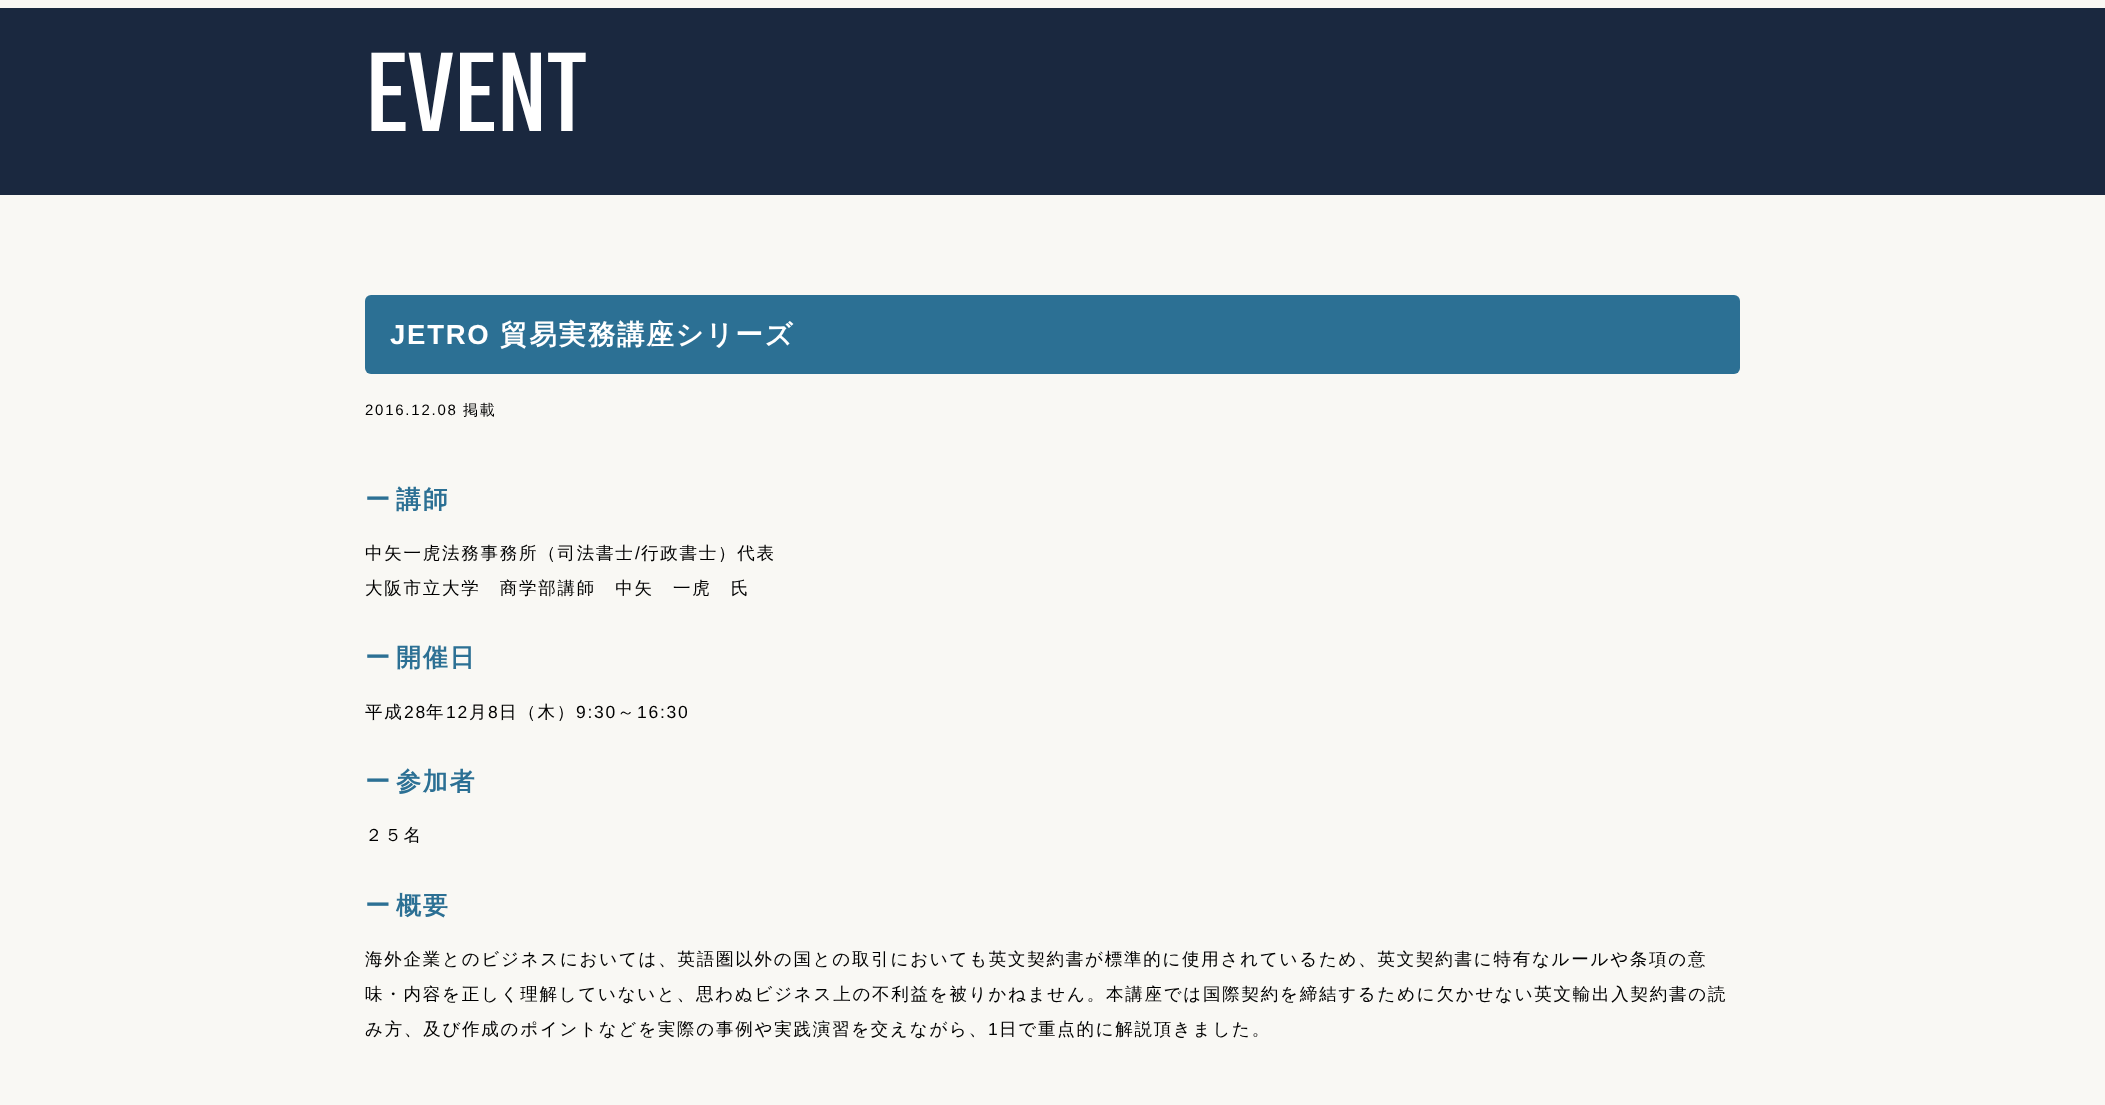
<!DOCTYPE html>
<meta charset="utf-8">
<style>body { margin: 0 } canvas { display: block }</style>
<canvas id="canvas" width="2105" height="1105"></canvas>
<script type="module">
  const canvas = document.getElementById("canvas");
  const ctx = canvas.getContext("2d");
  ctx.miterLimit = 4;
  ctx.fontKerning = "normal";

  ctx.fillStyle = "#f9f8f4";
  ctx.fillRect(0, 0, 2105, 1105);
  ctx.fillStyle = "#1a283f";
  ctx.fillRect(0, 8, 2105, 187);
  ctx.font = "125px Teko";
  ctx.fillStyle = "#ffffff";
  ctx.fillText("EVENT", 365, 131);
  ctx.fillStyle = "#2c7094";
  ctx.beginPath();
  ctx.roundRect(365, 295, 1375, 79, 6);
  ctx.fill();
  ctx.letterSpacing = "1.75px";
  ctx.font = "bold 27.5px Liberation Sans";
  ctx.fillStyle = "#ffffff";
  ctx.fillText("JETRO", 390, 344);
  ctx.font = "bold 27.5px WenQuanYi Zen Hei";
  ctx.fillText("貿易実務講座シリーズ", 500, 344);
  ctx.font = "15px Liberation Sans";
  ctx.fillStyle = "#000000";
  ctx.fillText("2016.12.08", 365, 415);
  ctx.font = "500 15px WenQuanYi Zen Hei";
  ctx.fillText("掲載", 463, 415);
  ctx.font = "bold 25px WenQuanYi Zen Hei";
  ctx.fillStyle = "#2c7094";
  ctx.fillText("ー", 365, 508);
  ctx.fillText("講師", 396, 508);
  ctx.font = "500 17.5px WenQuanYi Zen Hei";
  ctx.fillStyle = "#000000";
  ctx.fillText("中矢一虎法務事務所（司法書士", 365, 559);
  ctx.font = "17.5px Liberation Sans";
  ctx.fillText("/", 635, 559);
  ctx.font = "500 17.5px WenQuanYi Zen Hei";
  ctx.fillText("行政書士）代表", 641, 559);
  ctx.fillText("大阪市立大学　商学部講師　中矢　一虎　氏", 365, 594);
  ctx.font = "bold 25px WenQuanYi Zen Hei";
  ctx.fillStyle = "#2c7094";
  ctx.fillText("ー", 365, 666);
  ctx.fillText("開催日", 396, 666);
  ctx.font = "500 17.5px WenQuanYi Zen Hei";
  ctx.fillStyle = "#000000";
  ctx.fillText("平成", 365, 718);
  ctx.font = "17.5px Liberation Sans";
  ctx.fillText("28", 404, 718);
  ctx.font = "500 17.5px WenQuanYi Zen Hei";
  ctx.fillText("年", 426, 718);
  ctx.font = "17.5px Liberation Sans";
  ctx.fillText("12", 446, 718);
  ctx.font = "500 17.5px WenQuanYi Zen Hei";
  ctx.fillText("月", 469, 718);
  ctx.font = "17.5px Liberation Sans";
  ctx.fillText("8", 488, 718);
  ctx.font = "500 17.5px WenQuanYi Zen Hei";
  ctx.fillText("日（木）", 499, 718);
  ctx.font = "17.5px Liberation Sans";
  ctx.fillText("9:30", 576, 718);
  ctx.font = "500 17.5px WenQuanYi Zen Hei";
  ctx.fillText("～", 617, 718);
  ctx.font = "17.5px Liberation Sans";
  ctx.fillText("16:30", 637, 718);
  ctx.font = "bold 25px WenQuanYi Zen Hei";
  ctx.fillStyle = "#2c7094";
  ctx.fillText("ー", 365, 790);
  ctx.fillText("参加者", 396, 790);
  ctx.font = "500 17.5px WenQuanYi Zen Hei";
  ctx.fillStyle = "#000000";
  ctx.fillText("２５名", 365, 841);
  ctx.font = "bold 25px WenQuanYi Zen Hei";
  ctx.fillStyle = "#2c7094";
  ctx.fillText("ー", 365, 914);
  ctx.fillText("概要", 396, 914);
  ctx.font = "500 17.5px WenQuanYi Zen Hei";
  ctx.fillStyle = "#000000";
  ctx.fillText("海外企業とのビジネスにおいては、英語圏以外の国との取引においても英文契約書が標準的に使用されているため、英文契約書に特有なルールや条項の意", 365, 965);
  ctx.fillText("味・内容を正しく理解していないと、思わぬビジネス上の不利益を被りかねません。本講座では国際契約を締結するために欠かせない英文輸出入契約書の読", 365, 1000);
  ctx.fillText("み方、及び作成のポイントなどを実際の事例や実践演習を交えながら、", 365, 1035);
  ctx.font = "17.5px Liberation Sans";
  ctx.fillText("1", 988, 1035);
  ctx.font = "500 17.5px WenQuanYi Zen Hei";
  ctx.fillText("日で重点的に解説頂きました。", 999, 1035);
</script>
